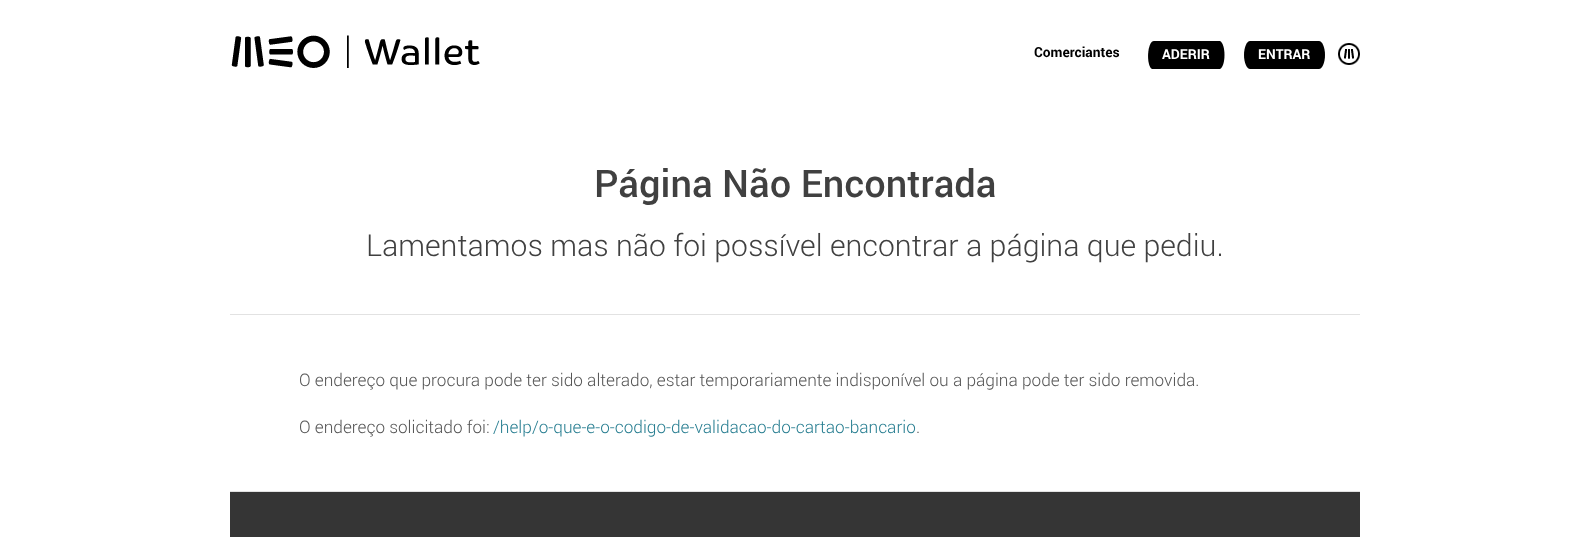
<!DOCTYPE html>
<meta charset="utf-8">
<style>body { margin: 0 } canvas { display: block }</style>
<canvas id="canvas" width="1590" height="537"></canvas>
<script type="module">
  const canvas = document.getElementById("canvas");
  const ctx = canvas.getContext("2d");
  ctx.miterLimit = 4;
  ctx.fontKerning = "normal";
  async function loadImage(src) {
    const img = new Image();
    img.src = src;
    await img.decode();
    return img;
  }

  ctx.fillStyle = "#ffffff";
  ctx.fillRect(0, 0, 1590, 537);
  ctx.drawImage(await loadImage("img1.png"), 231, 35, 249, 33);
  ctx.font = "bold 13.75px Roboto";
  ctx.fillStyle = "#000000";
  ctx.fillText("Comerciantes", 1034, 57);
  ctx.beginPath();
  ctx.moveTo(1154, 41);
  ctx.lineTo(1220, 41);
  ctx.bezierCurveTo(1226, 44, 1226, 66, 1220, 69);
  ctx.lineTo(1152, 69);
  ctx.bezierCurveTo(1146, 66, 1147, 41, 1154, 41);
  ctx.closePath();
  ctx.fill();
  ctx.fillStyle = "#ffffff";
  ctx.fillText("ADERIR", 1162, 59);
  ctx.fillStyle = "#000000";
  ctx.beginPath();
  ctx.moveTo(1250, 41);
  ctx.lineTo(1319, 41);
  ctx.bezierCurveTo(1322, 41, 1325, 47, 1325, 55);
  ctx.bezierCurveTo(1325, 63, 1322, 69, 1319, 69);
  ctx.lineTo(1250, 69);
  ctx.bezierCurveTo(1247, 69, 1244, 63, 1244, 55);
  ctx.bezierCurveTo(1244, 47, 1247, 41, 1250, 41);
  ctx.closePath();
  ctx.fill();
  ctx.fillStyle = "#ffffff";
  ctx.fillText("ENTRAR", 1258, 59);
  ctx.drawImage(await loadImage("img2.png"), 1338, 43, 22, 22);
  ctx.fillStyle = "#e2e2e2";
  ctx.fillRect(230, 314, 1130, 1);
  ctx.font = "500 38px Roboto";
  ctx.fillStyle = "#404040";
  ctx.fillText("Página Não Encontrada", 594, 197);
  ctx.font = "300 30.25px Roboto";
  ctx.fillText("Lamentamos mas não foi possível encontrar a página que pediu.", 366, 256);
  ctx.fillStyle = "#e2e2e2";
  ctx.fillRect(230, 491, 1130, 1);
  ctx.font = "300 17.28px Roboto";
  ctx.fillStyle = "#555555";
  ctx.fillText("O endereço que procura pode ter sido alterado, estar temporariamente indisponível ou a página pode ter sido removida.", 299, 386);
  ctx.fillText("O endereço solicitado foi:", 299, 433);
  ctx.fillStyle = "#287e91";
  ctx.fillText("/help/o-que-e-o-codigo-de-validacao-do-cartao-bancario", 493, 433);
  ctx.fillStyle = "#555555";
  ctx.fillText(".", 916, 433);
  ctx.fillStyle = "#353535";
  ctx.fillRect(230, 492, 1130, 45);
</script>
